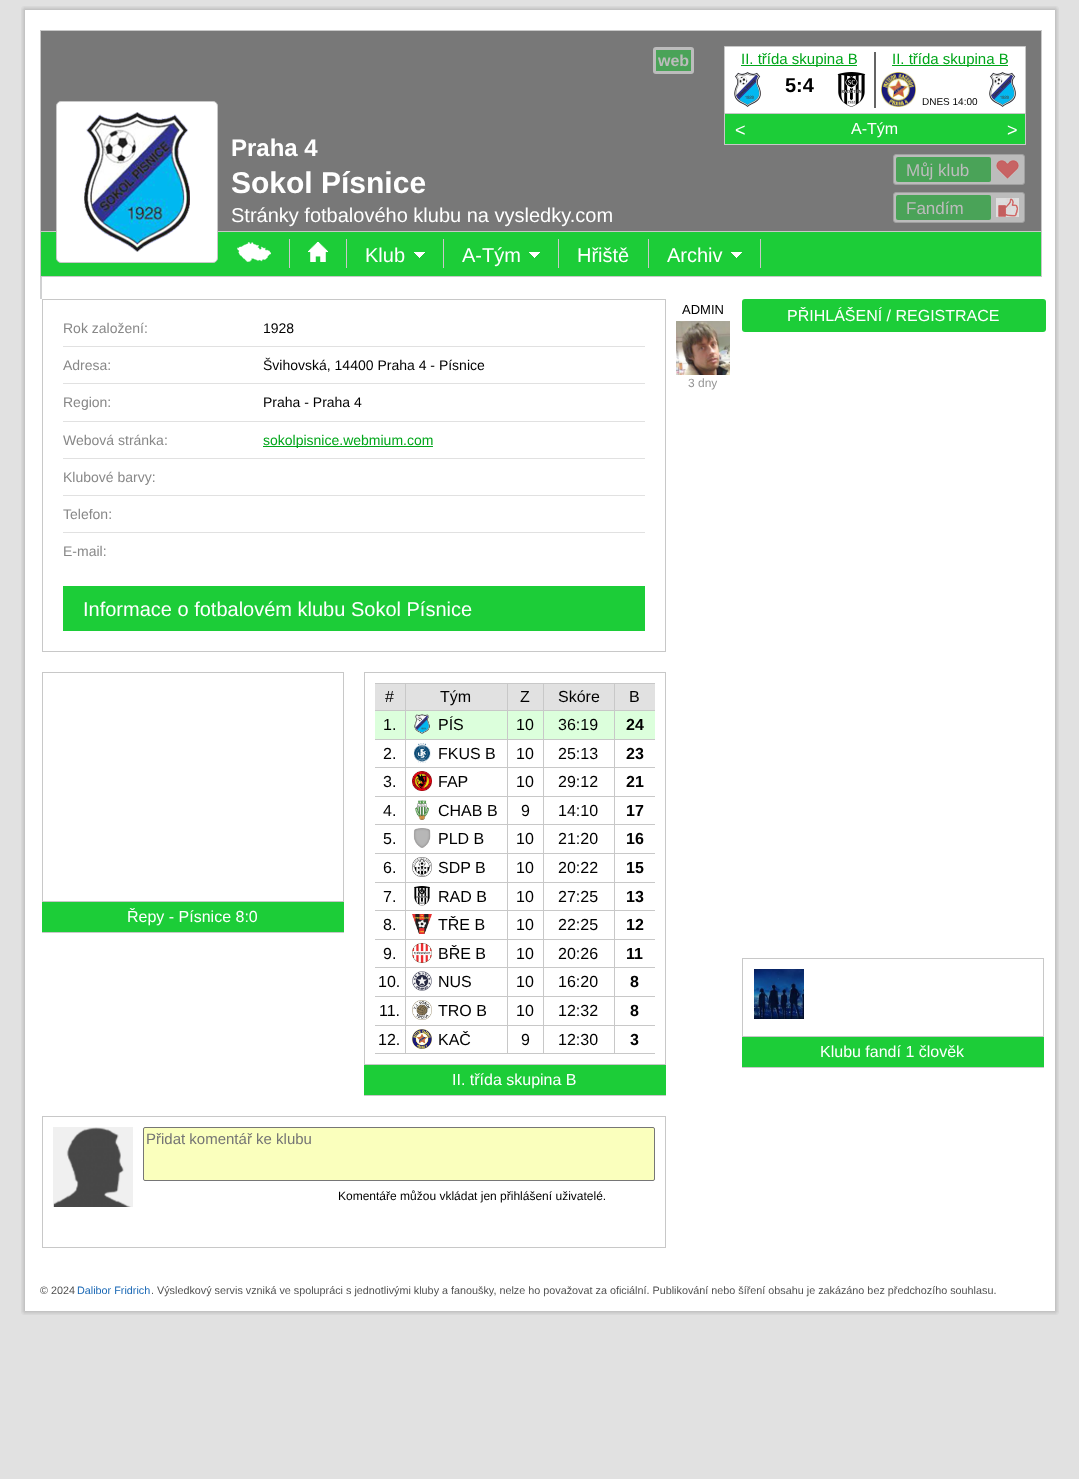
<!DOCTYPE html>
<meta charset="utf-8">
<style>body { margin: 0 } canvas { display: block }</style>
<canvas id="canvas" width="1079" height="1479"></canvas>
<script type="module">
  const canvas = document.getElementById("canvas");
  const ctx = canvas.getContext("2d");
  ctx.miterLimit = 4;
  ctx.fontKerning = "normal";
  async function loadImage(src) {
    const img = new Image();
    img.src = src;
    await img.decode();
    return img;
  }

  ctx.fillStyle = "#e1e1e1";
  ctx.fillRect(0, 0, 1079, 1479);
  ctx.drawImage(await loadImage("img1.png"), 21, 6, 1038, 4);
  ctx.drawImage(await loadImage("img2.png"), 21, 1311, 1038, 4);
  ctx.drawImage(await loadImage("img3.png"), 21, 10, 1038, 1301);
  ctx.fillStyle = "#c8c8c8";
  ctx.fillRect(40, 30, 1002, 202);
  ctx.fillStyle = "#787878";
  ctx.fillRect(41, 31, 1000, 200);
  ctx.fillStyle = "#4aa358";
  ctx.beginPath();
  ctx.roundRect(654.5, 48.5, 38, 24, 1.5);
  ctx.fill();
  ctx.strokeStyle = "#bcbcbc";
  ctx.lineWidth = 3;
  ctx.stroke();
  ctx.font = "bold 16px Liberation Sans";
  ctx.fillStyle = "#bcbcbc";
  ctx.fillText("web", 658, 66);
  ctx.fillStyle = "#ffffff";
  ctx.beginPath();
  ctx.rect(724.5, 46.5, 301, 67);
  ctx.fill();
  ctx.strokeStyle = "#c8c8c8";
  ctx.lineWidth = 1;
  ctx.stroke();
  ctx.fillStyle = "#00a61a";
  ctx.fillRect(741, 65, 116, 1);
  ctx.font = "15px Liberation Sans";
  ctx.fillText("II. třída skupina B", 741, 64);
  ctx.fillStyle = "#646464";
  ctx.fillRect(874, 52, 2, 56);
  ctx.drawImage(await loadImage("img4.png"), 734, 72, 27, 35);
  ctx.font = "bold 20px Liberation Sans";
  ctx.fillStyle = "#000000";
  ctx.fillText("5:4", 785, 92);
  ctx.drawImage(await loadImage("img5.png"), 837, 72, 29, 35);
  ctx.fillStyle = "#00a61a";
  ctx.fillRect(892, 65, 116, 1);
  ctx.font = "15px Liberation Sans";
  ctx.fillText("II. třída skupina B", 892, 64);
  ctx.drawImage(await loadImage("img6.png"), 881, 72, 35, 35);
  ctx.font = "10px Liberation Sans";
  ctx.fillStyle = "#000000";
  ctx.fillText("DNES 14:00", 922, 105);
  ctx.drawImage(await loadImage("img4.png"), 989, 72, 27, 35);
  ctx.fillStyle = "#1ccd38";
  ctx.fillRect(41, 232, 1000, 44);
  ctx.fillStyle = "#ffffff";
  ctx.beginPath();
  ctx.roundRect(56.5, 101.5, 161, 161, 4.5);
  ctx.fill();
  ctx.stroke();
  ctx.drawImage(await loadImage("img7.png"), 84, 112, 106, 140);
  ctx.fillStyle = "#1ccd38";
  ctx.fillRect(725, 114, 300, 30);
  ctx.fillStyle = "#c8c8c8";
  ctx.fillRect(1025, 114, 1, 31);
  ctx.fillRect(724, 144, 302, 1);
  ctx.fillRect(724, 114, 1, 31);
  ctx.font = "18px Liberation Sans";
  ctx.fillStyle = "#ffffff";
  ctx.fillText("<", 735, 136);
  ctx.font = "16px Liberation Sans";
  ctx.fillText("A-Tým", 851, 134);
  ctx.font = "18px Liberation Sans";
  ctx.fillText(">", 1007, 136);
  ctx.font = "bold 24px Liberation Sans";
  ctx.fillText("Praha 4", 231, 156);
  ctx.font = "bold 30px Liberation Sans";
  ctx.fillText("Sokol Písnice", 231, 193);
  ctx.fillStyle = "#bcbcbc";
  ctx.beginPath();
  ctx.roundRect(893.5, 154.5, 131, 30, 2.5);
  ctx.fill();
  ctx.strokeStyle = "#a0a0a0";
  ctx.stroke();
  ctx.fillStyle = "#4aa358";
  ctx.beginPath();
  ctx.roundRect(896, 157, 95, 25, 2);
  ctx.fill();
  ctx.font = "17px Liberation Sans";
  ctx.fillStyle = "#bcbcbc";
  ctx.fillText("Můj klub", 906, 176);
  ctx.drawImage(await loadImage("img8.png"), 996, 160, 23, 19);
  ctx.beginPath();
  ctx.roundRect(893.5, 192.5, 131, 30, 2.5);
  ctx.fill();
  ctx.stroke();
  ctx.fillStyle = "#4aa358";
  ctx.beginPath();
  ctx.roundRect(896, 195, 95, 25, 2);
  ctx.fill();
  ctx.fillStyle = "#bcbcbc";
  ctx.fillText("Fandím", 906, 214);
  ctx.drawImage(await loadImage("img9.png"), 996, 198, 23, 19);
  ctx.font = "20px Liberation Sans";
  ctx.fillStyle = "#ffffff";
  ctx.fillText("Stránky fotbalového klubu na vysledky.com", 231, 222);
  ctx.fillStyle = "#c8c8c8";
  ctx.fillRect(40, 232, 1, 44);
  ctx.fillRect(289, 239, 1, 29);
  ctx.drawImage(await loadImage("img10.png"), 237, 242, 34, 20);
  ctx.fillRect(346, 239, 1, 29);
  ctx.drawImage(await loadImage("img11.png"), 308, 242, 20, 20);
  ctx.fillRect(443, 239, 1, 29);
  ctx.fillStyle = "#ffffff";
  ctx.fillText("Klub", 365, 262);
  ctx.drawImage(await loadImage("img12.png"), 414, 252, 11, 6);
  ctx.fillStyle = "#c8c8c8";
  ctx.fillRect(558, 239, 1, 29);
  ctx.fillStyle = "#ffffff";
  ctx.fillText("A-Tým", 462, 262);
  ctx.drawImage(await loadImage("img12.png"), 529, 252, 11, 6);
  ctx.fillStyle = "#c8c8c8";
  ctx.fillRect(648, 239, 1, 29);
  ctx.fillStyle = "#ffffff";
  ctx.fillText("Hřiště", 577, 262);
  ctx.fillStyle = "#c8c8c8";
  ctx.fillRect(760, 239, 1, 29);
  ctx.fillStyle = "#ffffff";
  ctx.fillText("Archiv", 667, 262);
  ctx.drawImage(await loadImage("img12.png"), 731, 252, 11, 6);
  ctx.fillStyle = "#c8c8c8";
  ctx.fillRect(1041, 232, 1, 44);
  ctx.fillRect(40, 276, 1002, 1);
  ctx.fillStyle = "#d0d1d2";
  ctx.fillRect(40, 277, 2, 22);
  ctx.strokeStyle = "#c8c8c8";
  ctx.strokeRect(42.5, 299.5, 623, 352);
  ctx.fillStyle = "#e1e1e1";
  ctx.fillRect(63, 346, 582, 1);
  ctx.font = "14px Liberation Sans";
  ctx.fillStyle = "#888888";
  ctx.fillText("Rok založení:", 63, 333);
  ctx.fillStyle = "#000000";
  ctx.fillText("1928", 263, 333);
  ctx.fillStyle = "#e1e1e1";
  ctx.fillRect(63, 383, 582, 1);
  ctx.fillStyle = "#888888";
  ctx.fillText("Adresa:", 63, 370);
  ctx.fillStyle = "#000000";
  ctx.fillText("Švihovská, 14400 Praha 4 - Písnice", 263, 370);
  ctx.fillStyle = "#e1e1e1";
  ctx.fillRect(63, 421, 582, 1);
  ctx.fillStyle = "#888888";
  ctx.fillText("Region:", 63, 407);
  ctx.fillStyle = "#000000";
  ctx.fillText("Praha - Praha 4", 263, 407);
  ctx.fillStyle = "#e1e1e1";
  ctx.fillRect(63, 458, 582, 1);
  ctx.fillStyle = "#888888";
  ctx.fillText("Webová stránka:", 63, 445);
  ctx.fillStyle = "#00a61a";
  ctx.fillRect(263, 446, 170, 1);
  ctx.fillText("sokolpisnice.webmium.com", 263, 445);
  ctx.fillStyle = "#e1e1e1";
  ctx.fillRect(63, 495, 582, 1);
  ctx.fillStyle = "#888888";
  ctx.fillText("Klubové barvy:", 63, 482);
  ctx.fillStyle = "#e1e1e1";
  ctx.fillRect(63, 532, 582, 1);
  ctx.fillStyle = "#888888";
  ctx.fillText("Telefon:", 63, 519);
  ctx.fillText("E-mail:", 63, 556);
  ctx.fillStyle = "#1ccd38";
  ctx.fillRect(63, 586, 582, 45);
  ctx.font = "20px Liberation Sans";
  ctx.fillStyle = "#ffffff";
  ctx.fillText("Informace o fotbalovém klubu Sokol Písnice", 83, 616);
  ctx.strokeRect(42.5, 672.5, 301, 229);
  ctx.fillStyle = "#1ccd38";
  ctx.fillRect(42, 902, 302, 30);
  ctx.fillStyle = "#c8c8c8";
  ctx.fillRect(42, 932, 302, 1);
  ctx.font = "16px Liberation Sans";
  ctx.fillStyle = "#ffffff";
  ctx.fillText("Řepy - Písnice 8:0", 127, 922);
  ctx.strokeRect(364.5, 672.5, 301, 392);
  ctx.fillStyle = "#c8c8c8";
  ctx.fillRect(375, 683, 280, 1);
  ctx.fillStyle = "#e1e1e1";
  ctx.fillRect(375, 684, 280, 26);
  ctx.fillStyle = "#000000";
  ctx.fillText("#", 385, 702);
  ctx.fillStyle = "#c8c8c8";
  ctx.fillRect(405, 684, 1, 26);
  ctx.fillStyle = "#000000";
  ctx.fillText("Tým", 440, 702);
  ctx.fillStyle = "#c8c8c8";
  ctx.fillRect(507, 684, 1, 26);
  ctx.fillStyle = "#000000";
  ctx.fillText("Z", 520, 702);
  ctx.fillStyle = "#c8c8c8";
  ctx.fillRect(543, 684, 1, 26);
  ctx.fillStyle = "#000000";
  ctx.fillText("Skóre", 558, 702);
  ctx.fillStyle = "#c8c8c8";
  ctx.fillRect(614, 684, 1, 26);
  ctx.fillStyle = "#000000";
  ctx.fillText("B", 629, 702);
  ctx.fillStyle = "#c8c8c8";
  ctx.fillRect(375, 710, 280, 1);
  ctx.fillStyle = "#dcffdc";
  ctx.fillRect(375, 711, 280, 28);
  ctx.fillStyle = "#000000";
  ctx.fillText("1.", 383, 730);
  ctx.fillStyle = "#c8c8c8";
  ctx.fillRect(405, 711, 1, 28);
  ctx.drawImage(await loadImage("img13.png"), 414, 714, 16, 20);
  ctx.fillStyle = "#000000";
  ctx.fillText("PÍS", 438, 730);
  ctx.fillStyle = "#c8c8c8";
  ctx.fillRect(507, 711, 1, 28);
  ctx.fillStyle = "#000000";
  ctx.fillText("10", 516, 730);
  ctx.fillStyle = "#c8c8c8";
  ctx.fillRect(543, 711, 1, 28);
  ctx.fillStyle = "#000000";
  ctx.fillText("36:19", 558, 730);
  ctx.fillStyle = "#c8c8c8";
  ctx.fillRect(614, 711, 1, 28);
  ctx.font = "bold 16px Liberation Sans";
  ctx.fillStyle = "#000000";
  ctx.fillText("24", 626, 730);
  ctx.fillStyle = "#c8c8c8";
  ctx.fillRect(375, 739, 280, 1);
  ctx.font = "16px Liberation Sans";
  ctx.fillStyle = "#000000";
  ctx.fillText("2.", 383, 759);
  ctx.fillStyle = "#c8c8c8";
  ctx.fillRect(405, 740, 1, 27);
  ctx.drawImage(await loadImage("img14.png"), 413, 743, 18, 20);
  ctx.fillStyle = "#000000";
  ctx.fillText("FKUS B", 438, 759);
  ctx.fillStyle = "#c8c8c8";
  ctx.fillRect(507, 740, 1, 27);
  ctx.fillStyle = "#000000";
  ctx.fillText("10", 516, 759);
  ctx.fillStyle = "#c8c8c8";
  ctx.fillRect(543, 740, 1, 27);
  ctx.fillStyle = "#000000";
  ctx.fillText("25:13", 558, 759);
  ctx.fillStyle = "#c8c8c8";
  ctx.fillRect(614, 740, 1, 27);
  ctx.font = "bold 16px Liberation Sans";
  ctx.fillStyle = "#000000";
  ctx.fillText("23", 626, 759);
  ctx.fillStyle = "#c8c8c8";
  ctx.fillRect(375, 767, 280, 1);
  ctx.font = "16px Liberation Sans";
  ctx.fillStyle = "#000000";
  ctx.fillText("3.", 383, 787);
  ctx.fillStyle = "#c8c8c8";
  ctx.fillRect(405, 768, 1, 28);
  ctx.drawImage(await loadImage("img15.png"), 412, 771, 20, 20);
  ctx.fillStyle = "#000000";
  ctx.fillText("FAP", 438, 787);
  ctx.fillStyle = "#c8c8c8";
  ctx.fillRect(507, 768, 1, 28);
  ctx.fillStyle = "#000000";
  ctx.fillText("10", 516, 787);
  ctx.fillStyle = "#c8c8c8";
  ctx.fillRect(543, 768, 1, 28);
  ctx.fillStyle = "#000000";
  ctx.fillText("29:12", 558, 787);
  ctx.fillStyle = "#c8c8c8";
  ctx.fillRect(614, 768, 1, 28);
  ctx.font = "bold 16px Liberation Sans";
  ctx.fillStyle = "#000000";
  ctx.fillText("21", 626, 787);
  ctx.fillStyle = "#c8c8c8";
  ctx.fillRect(375, 796, 280, 1);
  ctx.font = "16px Liberation Sans";
  ctx.fillStyle = "#000000";
  ctx.fillText("4.", 383, 816);
  ctx.fillStyle = "#c8c8c8";
  ctx.fillRect(405, 797, 1, 27);
  ctx.drawImage(await loadImage("img16.png"), 415, 800, 14, 20);
  ctx.fillStyle = "#000000";
  ctx.fillText("CHAB B", 438, 816);
  ctx.fillStyle = "#c8c8c8";
  ctx.fillRect(507, 797, 1, 27);
  ctx.fillStyle = "#000000";
  ctx.fillText("9", 521, 816);
  ctx.fillStyle = "#c8c8c8";
  ctx.fillRect(543, 797, 1, 27);
  ctx.fillStyle = "#000000";
  ctx.fillText("14:10", 558, 816);
  ctx.fillStyle = "#c8c8c8";
  ctx.fillRect(614, 797, 1, 27);
  ctx.font = "bold 16px Liberation Sans";
  ctx.fillStyle = "#000000";
  ctx.fillText("17", 626, 816);
  ctx.fillStyle = "#c8c8c8";
  ctx.fillRect(375, 824, 280, 1);
  ctx.font = "16px Liberation Sans";
  ctx.fillStyle = "#000000";
  ctx.fillText("5.", 383, 844);
  ctx.fillStyle = "#c8c8c8";
  ctx.fillRect(405, 825, 1, 28);
  ctx.drawImage(await loadImage("img17.png"), 413, 828, 18, 20);
  ctx.fillStyle = "#000000";
  ctx.fillText("PLD B", 438, 844);
  ctx.fillStyle = "#c8c8c8";
  ctx.fillRect(507, 825, 1, 28);
  ctx.fillStyle = "#000000";
  ctx.fillText("10", 516, 844);
  ctx.fillStyle = "#c8c8c8";
  ctx.fillRect(543, 825, 1, 28);
  ctx.fillStyle = "#000000";
  ctx.fillText("21:20", 558, 844);
  ctx.fillStyle = "#c8c8c8";
  ctx.fillRect(614, 825, 1, 28);
  ctx.font = "bold 16px Liberation Sans";
  ctx.fillStyle = "#000000";
  ctx.fillText("16", 626, 844);
  ctx.fillStyle = "#c8c8c8";
  ctx.fillRect(375, 853, 280, 1);
  ctx.font = "16px Liberation Sans";
  ctx.fillStyle = "#000000";
  ctx.fillText("6.", 383, 873);
  ctx.fillStyle = "#c8c8c8";
  ctx.fillRect(405, 854, 1, 28);
  ctx.drawImage(await loadImage("img18.png"), 412, 857, 20, 20);
  ctx.fillStyle = "#000000";
  ctx.fillText("SDP B", 438, 873);
  ctx.fillStyle = "#c8c8c8";
  ctx.fillRect(507, 854, 1, 28);
  ctx.fillStyle = "#000000";
  ctx.fillText("10", 516, 873);
  ctx.fillStyle = "#c8c8c8";
  ctx.fillRect(543, 854, 1, 28);
  ctx.fillStyle = "#000000";
  ctx.fillText("20:22", 558, 873);
  ctx.fillStyle = "#c8c8c8";
  ctx.fillRect(614, 854, 1, 28);
  ctx.font = "bold 16px Liberation Sans";
  ctx.fillStyle = "#000000";
  ctx.fillText("15", 626, 873);
  ctx.fillStyle = "#c8c8c8";
  ctx.fillRect(375, 882, 280, 1);
  ctx.font = "16px Liberation Sans";
  ctx.fillStyle = "#000000";
  ctx.fillText("7.", 383, 902);
  ctx.fillStyle = "#c8c8c8";
  ctx.fillRect(405, 883, 1, 27);
  ctx.drawImage(await loadImage("img19.png"), 414, 886, 16, 20);
  ctx.fillStyle = "#000000";
  ctx.fillText("RAD B", 438, 902);
  ctx.fillStyle = "#c8c8c8";
  ctx.fillRect(507, 883, 1, 27);
  ctx.fillStyle = "#000000";
  ctx.fillText("10", 516, 902);
  ctx.fillStyle = "#c8c8c8";
  ctx.fillRect(543, 883, 1, 27);
  ctx.fillStyle = "#000000";
  ctx.fillText("27:25", 558, 902);
  ctx.fillStyle = "#c8c8c8";
  ctx.fillRect(614, 883, 1, 27);
  ctx.font = "bold 16px Liberation Sans";
  ctx.fillStyle = "#000000";
  ctx.fillText("13", 626, 902);
  ctx.fillStyle = "#c8c8c8";
  ctx.fillRect(375, 910, 280, 1);
  ctx.font = "16px Liberation Sans";
  ctx.fillStyle = "#000000";
  ctx.fillText("8.", 383, 930);
  ctx.fillStyle = "#c8c8c8";
  ctx.fillRect(405, 911, 1, 28);
  ctx.drawImage(await loadImage("img20.png"), 412, 914, 20, 20);
  ctx.fillStyle = "#000000";
  ctx.fillText("TŘE B", 438, 930);
  ctx.fillStyle = "#c8c8c8";
  ctx.fillRect(507, 911, 1, 28);
  ctx.fillStyle = "#000000";
  ctx.fillText("10", 516, 930);
  ctx.fillStyle = "#c8c8c8";
  ctx.fillRect(543, 911, 1, 28);
  ctx.fillStyle = "#000000";
  ctx.fillText("22:25", 558, 930);
  ctx.fillStyle = "#c8c8c8";
  ctx.fillRect(614, 911, 1, 28);
  ctx.font = "bold 16px Liberation Sans";
  ctx.fillStyle = "#000000";
  ctx.fillText("12", 626, 930);
  ctx.fillStyle = "#c8c8c8";
  ctx.fillRect(375, 939, 280, 1);
  ctx.font = "16px Liberation Sans";
  ctx.fillStyle = "#000000";
  ctx.fillText("9.", 383, 959);
  ctx.fillStyle = "#c8c8c8";
  ctx.fillRect(405, 940, 1, 27);
  ctx.drawImage(await loadImage("img21.png"), 412, 943, 20, 20);
  ctx.fillStyle = "#000000";
  ctx.fillText("BŘE B", 438, 959);
  ctx.fillStyle = "#c8c8c8";
  ctx.fillRect(507, 940, 1, 27);
  ctx.fillStyle = "#000000";
  ctx.fillText("10", 516, 959);
  ctx.fillStyle = "#c8c8c8";
  ctx.fillRect(543, 940, 1, 27);
  ctx.fillStyle = "#000000";
  ctx.fillText("20:26", 558, 959);
  ctx.fillStyle = "#c8c8c8";
  ctx.fillRect(614, 940, 1, 27);
  ctx.font = "bold 16px Liberation Sans";
  ctx.fillStyle = "#000000";
  ctx.fillText("11", 626, 959);
  ctx.fillStyle = "#c8c8c8";
  ctx.fillRect(375, 967, 280, 1);
  ctx.font = "16px Liberation Sans";
  ctx.fillStyle = "#000000";
  ctx.fillText("10.", 378, 987);
  ctx.fillStyle = "#c8c8c8";
  ctx.fillRect(405, 968, 1, 28);
  ctx.drawImage(await loadImage("img22.png"), 412, 971, 20, 20);
  ctx.fillStyle = "#000000";
  ctx.fillText("NUS", 438, 987);
  ctx.fillStyle = "#c8c8c8";
  ctx.fillRect(507, 968, 1, 28);
  ctx.fillStyle = "#000000";
  ctx.fillText("10", 516, 987);
  ctx.fillStyle = "#c8c8c8";
  ctx.fillRect(543, 968, 1, 28);
  ctx.fillStyle = "#000000";
  ctx.fillText("16:20", 558, 987);
  ctx.fillStyle = "#c8c8c8";
  ctx.fillRect(614, 968, 1, 28);
  ctx.font = "bold 16px Liberation Sans";
  ctx.fillStyle = "#000000";
  ctx.fillText("8", 630, 987);
  ctx.fillStyle = "#c8c8c8";
  ctx.fillRect(375, 996, 280, 1);
  ctx.font = "16px Liberation Sans";
  ctx.fillStyle = "#000000";
  ctx.fillText("11.", 379, 1016);
  ctx.fillStyle = "#c8c8c8";
  ctx.fillRect(405, 997, 1, 28);
  ctx.drawImage(await loadImage("img23.png"), 412, 1000, 20, 20);
  ctx.fillStyle = "#000000";
  ctx.fillText("TRO B", 438, 1016);
  ctx.fillStyle = "#c8c8c8";
  ctx.fillRect(507, 997, 1, 28);
  ctx.fillStyle = "#000000";
  ctx.fillText("10", 516, 1016);
  ctx.fillStyle = "#c8c8c8";
  ctx.fillRect(543, 997, 1, 28);
  ctx.fillStyle = "#000000";
  ctx.fillText("12:32", 558, 1016);
  ctx.fillStyle = "#c8c8c8";
  ctx.fillRect(614, 997, 1, 28);
  ctx.font = "bold 16px Liberation Sans";
  ctx.fillStyle = "#000000";
  ctx.fillText("8", 630, 1016);
  ctx.fillStyle = "#c8c8c8";
  ctx.fillRect(375, 1025, 280, 1);
  ctx.font = "16px Liberation Sans";
  ctx.fillStyle = "#000000";
  ctx.fillText("12.", 378, 1045);
  ctx.fillStyle = "#c8c8c8";
  ctx.fillRect(405, 1026, 1, 27);
  ctx.drawImage(await loadImage("img24.png"), 412, 1029, 20, 20);
  ctx.fillStyle = "#000000";
  ctx.fillText("KAČ", 438, 1045);
  ctx.fillStyle = "#c8c8c8";
  ctx.fillRect(507, 1026, 1, 27);
  ctx.fillStyle = "#000000";
  ctx.fillText("9", 521, 1045);
  ctx.fillStyle = "#c8c8c8";
  ctx.fillRect(543, 1026, 1, 27);
  ctx.fillStyle = "#000000";
  ctx.fillText("12:30", 558, 1045);
  ctx.fillStyle = "#c8c8c8";
  ctx.fillRect(614, 1026, 1, 27);
  ctx.font = "bold 16px Liberation Sans";
  ctx.fillStyle = "#000000";
  ctx.fillText("3", 630, 1045);
  ctx.fillStyle = "#c8c8c8";
  ctx.fillRect(375, 1053, 280, 1);
  ctx.fillStyle = "#1ccd38";
  ctx.fillRect(364, 1065, 302, 30);
  ctx.fillStyle = "#c8c8c8";
  ctx.fillRect(364, 1095, 302, 1);
  ctx.font = "16px Liberation Sans";
  ctx.fillStyle = "#ffffff";
  ctx.fillText("II. třída skupina B", 452, 1085);
  ctx.strokeRect(42.5, 1116.5, 623, 131);
  ctx.drawImage(await loadImage("img25.png"), 53, 1127, 80, 80);
  ctx.fillStyle = "#faffbd";
  ctx.beginPath();
  ctx.roundRect(143.5, 1127.5, 511, 53, 1.5);
  ctx.fill();
  ctx.strokeStyle = "#767676";
  ctx.stroke();
  ctx.font = "15px Liberation Sans";
  ctx.fillStyle = "#757575";
  ctx.fillText("Přidat komentář ke klubu", 146, 1144);
  ctx.font = "12px Liberation Sans";
  ctx.fillStyle = "#000000";
  ctx.fillText("Komentáře můžou vkládat jen přihlášení uživatelé.", 338, 1200);
  ctx.font = "13px Liberation Sans";
  ctx.fillText("ADMIN", 682, 314);
  ctx.drawImage(await loadImage("img26.png"), 676, 321, 54, 54);
  ctx.font = "12px Liberation Sans";
  ctx.fillStyle = "#969696";
  ctx.fillText("3 dny", 688, 387);
  ctx.fillStyle = "#1ccd38";
  ctx.beginPath();
  ctx.roundRect(742, 299, 304, 33, 3);
  ctx.fill();
  ctx.font = "16px Liberation Sans";
  ctx.fillStyle = "#ffffff";
  ctx.fillText("PŘIHLÁŠENÍ / REGISTRACE", 787, 321);
  ctx.strokeStyle = "#c8c8c8";
  ctx.strokeRect(742.5, 958.5, 301, 78);
  ctx.drawImage(await loadImage("img27.png"), 754, 969, 50, 50);
  ctx.fillStyle = "#1ccd38";
  ctx.fillRect(742, 1037, 302, 30);
  ctx.fillStyle = "#c8c8c8";
  ctx.fillRect(742, 1067, 302, 1);
  ctx.fillStyle = "#ffffff";
  ctx.fillText("Klubu fandí 1 člověk", 820, 1057);
  ctx.font = "10.8px Liberation Sans";
  ctx.fillStyle = "#515151";
  ctx.fillText("© 2024", 40, 1294);
  ctx.fillStyle = "#1a68b5";
  ctx.fillText("Dalibor Fridrich", 77, 1294);
  ctx.fillStyle = "#515151";
  ctx.fillText(". Výsledkový servis vzniká ve spolupráci s jednotlivými kluby a fanoušky, nelze ho považovat za oficiální. Publikování nebo šíření obsahu je zakázáno bez předchozího souhlasu.", 151, 1294);
</script>
